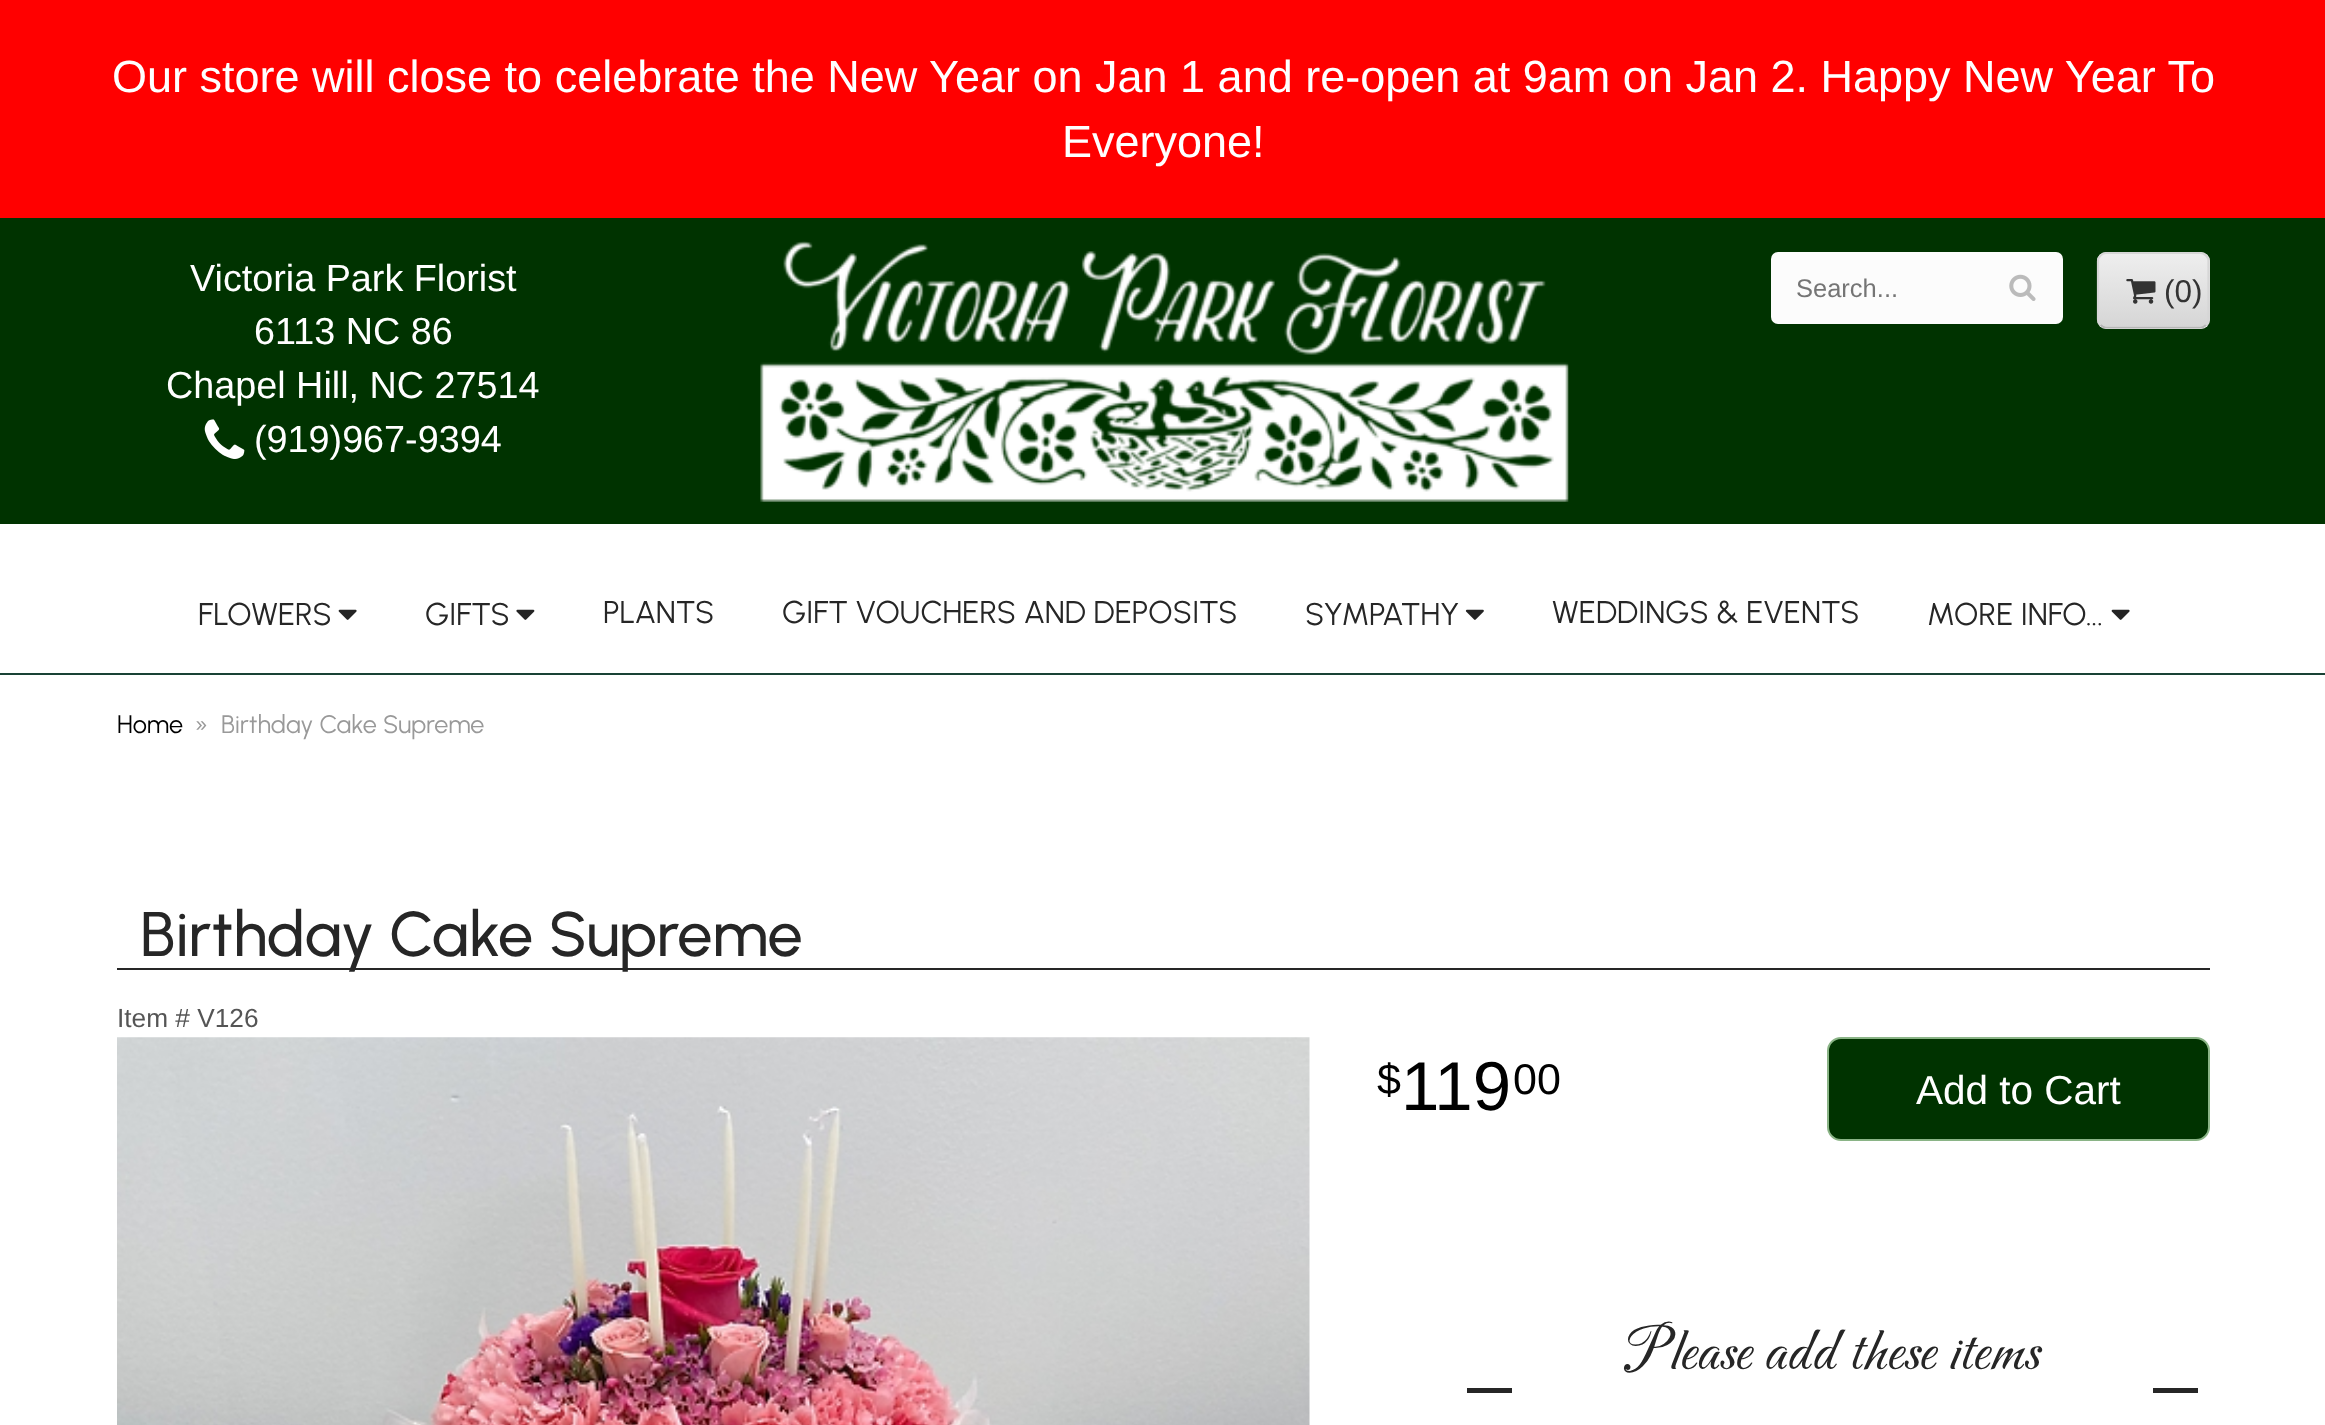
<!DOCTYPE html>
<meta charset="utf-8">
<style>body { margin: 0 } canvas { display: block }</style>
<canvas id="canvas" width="2325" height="1425"></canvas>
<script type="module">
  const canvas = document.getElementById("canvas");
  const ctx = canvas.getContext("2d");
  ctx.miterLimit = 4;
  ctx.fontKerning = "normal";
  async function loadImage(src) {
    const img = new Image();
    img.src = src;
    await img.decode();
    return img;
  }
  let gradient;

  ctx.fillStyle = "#ffffff";
  ctx.fillRect(0, 0, 2325, 1425);
  ctx.fillStyle = "#ff0000";
  ctx.fillRect(0, 0, 2325, 218);
  ctx.font = "45px Liberation Sans";
  ctx.fillStyle = "#ffffff";
  ctx.fillText("Our store will close to celebrate the New Year on Jan 1 and re-open at 9am on Jan 2. Happy New Year To", 112, 92);
  ctx.fillText("Everyone!", 1062, 157);
  ctx.fillStyle = "#003300";
  ctx.fillRect(0, 218, 2325, 306);
  ctx.font = "37.75px Liberation Sans";
  ctx.fillStyle = "#ffffff";
  ctx.fillText("Victoria Park Florist", 190, 291);
  ctx.fillText("6113 NC 86", 254, 344);
  ctx.fillText("Chapel Hill, NC 27514", 166, 398);
  ctx.drawImage(await loadImage("img1.png"), 204, 419, 41, 40);
  ctx.fillText("(919)967-9394", 254, 452);
  ctx.drawImage(await loadImage("img2.png"), 760, 241, 809, 261);
  ctx.fillStyle = "#fcfcfc";
  ctx.beginPath();
  ctx.roundRect(1771, 252, 292, 72, 7);
  ctx.fill();
  ctx.font = "25.5px Liberation Sans";
  ctx.fillStyle = "#757575";
  ctx.fillText("Search...", 1796, 297);
  ctx.drawImage(await loadImage("img3.png"), 2009, 274, 27, 27);
  ctx.save();
  ctx.beginPath();
  ctx.roundRect(2097, 252, 113, 77, 9);
  ctx.clip();
  gradient = ctx.createLinearGradient(2153, 182, 2153, 254);
  gradient.addColorStop(0, "#eeeeee");
  gradient.addColorStop(1, "#d6d6d6");
  ctx.fillStyle = gradient;
  ctx.fillRect(2097, 252, 113, 2);
  gradient = ctx.createLinearGradient(2153, 254, 2153, 326);
  gradient.addColorStop(0, "#eeeeee");
  gradient.addColorStop(1, "#d6d6d6");
  ctx.fillStyle = gradient;
  ctx.fillRect(2097, 254, 113, 72);
  gradient = ctx.createLinearGradient(2153, 326, 2153, 398);
  gradient.addColorStop(0, "#eeeeee");
  gradient.addColorStop(1, "#d6d6d6");
  ctx.fillStyle = gradient;
  ctx.fillRect(2097, 326, 113, 3);
  ctx.restore();
  ctx.beginPath();
  ctx.moveTo(2206, 325);
  ctx.bezierCurveTo(2204.5, 326.5, 2202.5, 327.5, 2200.5, 327.5);
  ctx.lineTo(2106, 327.5);
  ctx.bezierCurveTo(2104, 327.5, 2102, 326.5, 2100.5, 325);
  ctx.strokeStyle = "#b6b6b6";
  ctx.lineWidth = 2.2;
  ctx.stroke();
  ctx.beginPath();
  ctx.moveTo(2100.5, 325);
  ctx.bezierCurveTo(2099, 323.5, 2098, 321.5, 2098, 319.5);
  ctx.lineTo(2098, 261);
  ctx.bezierCurveTo(2098, 259, 2099, 257, 2100.5, 255.5);
  ctx.bezierCurveTo(2102, 254, 2104, 253, 2106, 253);
  ctx.lineTo(2200.5, 253);
  ctx.bezierCurveTo(2202.5, 253, 2204.5, 254, 2206, 255.5);
  ctx.bezierCurveTo(2207.5, 257, 2208.5, 259, 2208.5, 261);
  ctx.lineTo(2208.5, 319.5);
  ctx.bezierCurveTo(2208.5, 321.5, 2207.5, 323.5, 2206, 325);
  ctx.strokeStyle = "#d6d6d6";
  ctx.stroke();
  ctx.drawImage(await loadImage("img4.png"), 2126, 279, 30, 25);
  ctx.font = "31.5px Liberation Sans";
  ctx.fillStyle = "#333333";
  ctx.fillText("(0)", 2164, 302);
  ctx.fillStyle = "#194235";
  ctx.fillRect(0, 673, 2325, 2);
  ctx.font = "31.5px Urbanist";
  ctx.fillStyle = "#262626";
  ctx.fillText("FLOWERS", 198, 625);
  ctx.drawImage(await loadImage("img5.png"), 338, 609, 19, 11);
  ctx.fillText("GIFTS", 425, 625);
  ctx.drawImage(await loadImage("img6.png"), 516, 609, 19, 11);
  ctx.fillText("PLANTS", 603, 623);
  ctx.fillText("GIFT VOUCHERS AND DEPOSITS", 782, 623);
  ctx.fillText("SYMPATHY", 1305, 625);
  ctx.drawImage(await loadImage("img7.png"), 1465, 609, 19, 11);
  ctx.fillText("WEDDINGS & EVENTS", 1552, 623);
  ctx.fillText("MORE INFO...", 1927, 625);
  ctx.drawImage(await loadImage("img5.png"), 2111, 609, 19, 11);
  ctx.font = "25.25px Urbanist";
  ctx.fillStyle = "#000000";
  ctx.fillText("Home", 117, 733);
  ctx.fillStyle = "#999999";
  ctx.fillText("»", 195, 733);
  ctx.fillText("Birthday Cake Supreme", 221, 733);
  ctx.fillStyle = "#262626";
  ctx.fillRect(117, 968, 2093, 2);
  ctx.font = "500 63px Urbanist";
  ctx.fillText("Birthday Cake Supreme", 140, 956);
  ctx.font = "26.25px Liberation Sans";
  ctx.fillStyle = "#555555";
  ctx.fillText("Item # V126", 117, 1027);
  ctx.drawImage(await loadImage("img8.png"), 117, 1037, 1193, 388);
  ctx.font = "43px Liberation Sans";
  ctx.fillStyle = "#000000";
  ctx.fillText("$", 1377, 1094);
  ctx.font = "69px Liberation Sans";
  ctx.fillText("119", 1401, 1110);
  ctx.font = "43px Liberation Sans";
  ctx.fillText("00", 1513, 1094);
  ctx.fillStyle = "#003300";
  ctx.beginPath();
  ctx.roundRect(1828, 1038, 381, 102, 13);
  ctx.fill();
  ctx.strokeStyle = "#8ab486";
  ctx.lineWidth = 2;
  ctx.stroke();
  ctx.font = "40.5px Liberation Sans";
  ctx.fillStyle = "#ffffff";
  ctx.fillText("Add to Cart", 1916, 1104);
  ctx.font = "63px Carattere";
  ctx.fillStyle = "#262626";
  ctx.fillText("Please add these items", 1626, 1369);
  ctx.fillRect(1467, 1388, 45, 5);
  ctx.fillRect(2153, 1388, 45, 5);
</script>
